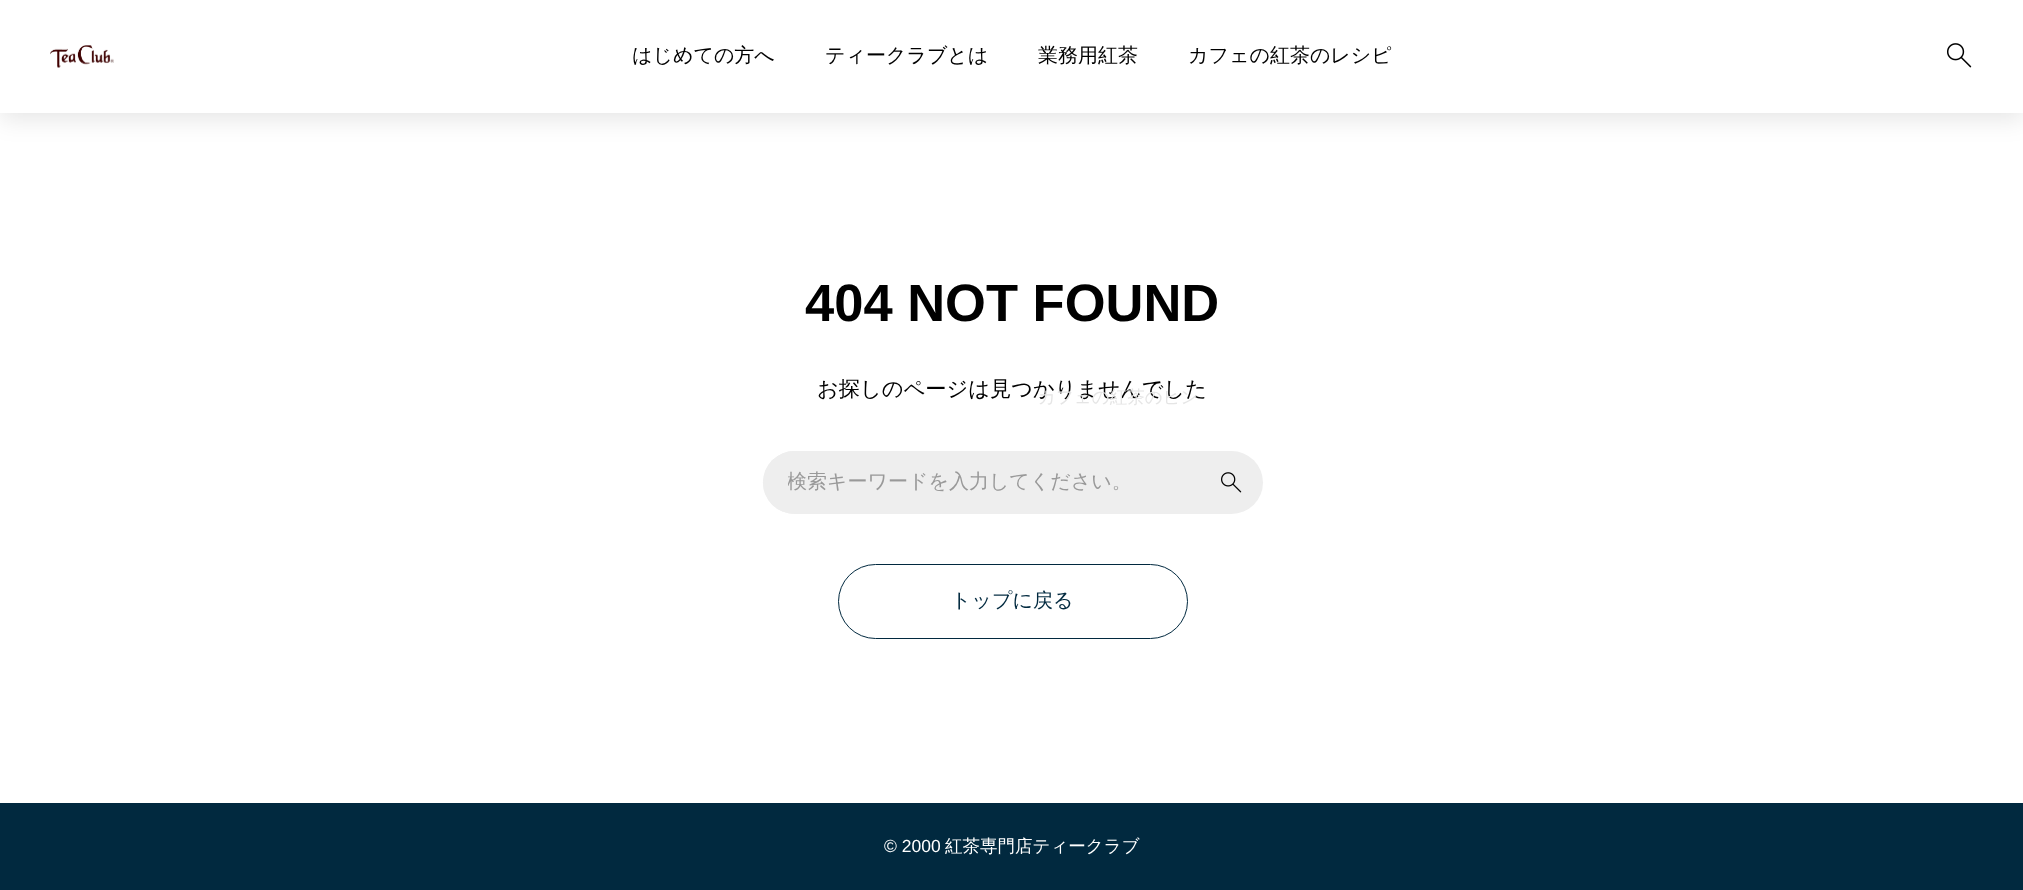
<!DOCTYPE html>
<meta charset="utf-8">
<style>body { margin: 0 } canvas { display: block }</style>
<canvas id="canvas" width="2023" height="890"></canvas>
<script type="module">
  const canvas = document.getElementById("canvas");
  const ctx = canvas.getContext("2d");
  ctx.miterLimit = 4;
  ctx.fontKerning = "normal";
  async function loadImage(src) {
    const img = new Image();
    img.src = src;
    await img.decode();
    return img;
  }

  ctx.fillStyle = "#ffffff";
  ctx.fillRect(0, 0, 2023, 890);
  ctx.fillStyle = "rgba(0, 0, 0, 0.1)";
  ctx.filter = "blur(12.5px)";
  ctx.beginPath();
  ctx.rect(0, 6, 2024, 113);
  ctx.fill();
  ctx.filter = "none";
  ctx.fillStyle = "#ffffff";
  ctx.fillRect(0, 0, 2023, 113);
  ctx.drawImage(await loadImage("img1.png"), 50, 45, 64, 23);
  ctx.font = "500 20px WenQuanYi Zen Hei";
  ctx.fillStyle = "#000000";
  ctx.fillText("はじめての方へ", 632, 62);
  ctx.fillText("ティークラブとは", 825, 62);
  ctx.fillText("業務用紅茶", 1038, 62);
  ctx.fillText("カフェの紅茶のレシピ", 1188, 62);
  ctx.drawImage(await loadImage("img2.png"), 1947, 43, 25, 25);
  ctx.font = "500 21.25px WenQuanYi Zen Hei";
  ctx.fillText("お探しのページは見つかりませんでした", 817, 396);
  ctx.font = "500 17.5px WenQuanYi Zen Hei";
  ctx.fillStyle = "#e5e5e5";
  ctx.fillText("カフェの紅茶のヒン", 1038, 403);
  ctx.font = "bold 52.5px Liberation Sans";
  ctx.fillStyle = "#000000";
  ctx.fillText("404 NOT FOUND", 805, 321);
  ctx.fillStyle = "#eeeeee";
  ctx.beginPath();
  ctx.roundRect(763, 451, 500, 63, 31.5);
  ctx.fill();
  ctx.beginPath();
  ctx.roundRect(763, 451, 437, 63, [31.5, 0, 0, 31.5]);
  ctx.fill();
  ctx.save();
  ctx.beginPath();
  ctx.rect(788, 470, 387, 26);
  ctx.clip();
  ctx.font = "500 20px WenQuanYi Zen Hei";
  ctx.fillStyle = "#999999";
  ctx.fillText("検索キーワードを入力してください。", 787, 488);
  ctx.restore();
  ctx.drawImage(await loadImage("img3.png"), 1221, 472, 21, 21);
  ctx.beginPath();
  ctx.roundRect(838.5, 564.5, 349, 74, 37);
  ctx.strokeStyle = "#01293f";
  ctx.stroke();
  ctx.font = "500 20px WenQuanYi Zen Hei";
  ctx.fillStyle = "#01293f";
  ctx.fillText("トップに戻る", 951, 607);
  ctx.fillRect(0, 803, 2023, 87);
  ctx.font = "17.5px Liberation Sans";
  ctx.fillStyle = "#ffffff";
  ctx.fillText("© 2000", 884, 852);
  ctx.font = "500 17.5px WenQuanYi Zen Hei";
  ctx.fillText("紅茶専門店ティークラブ", 945, 852);
</script>
